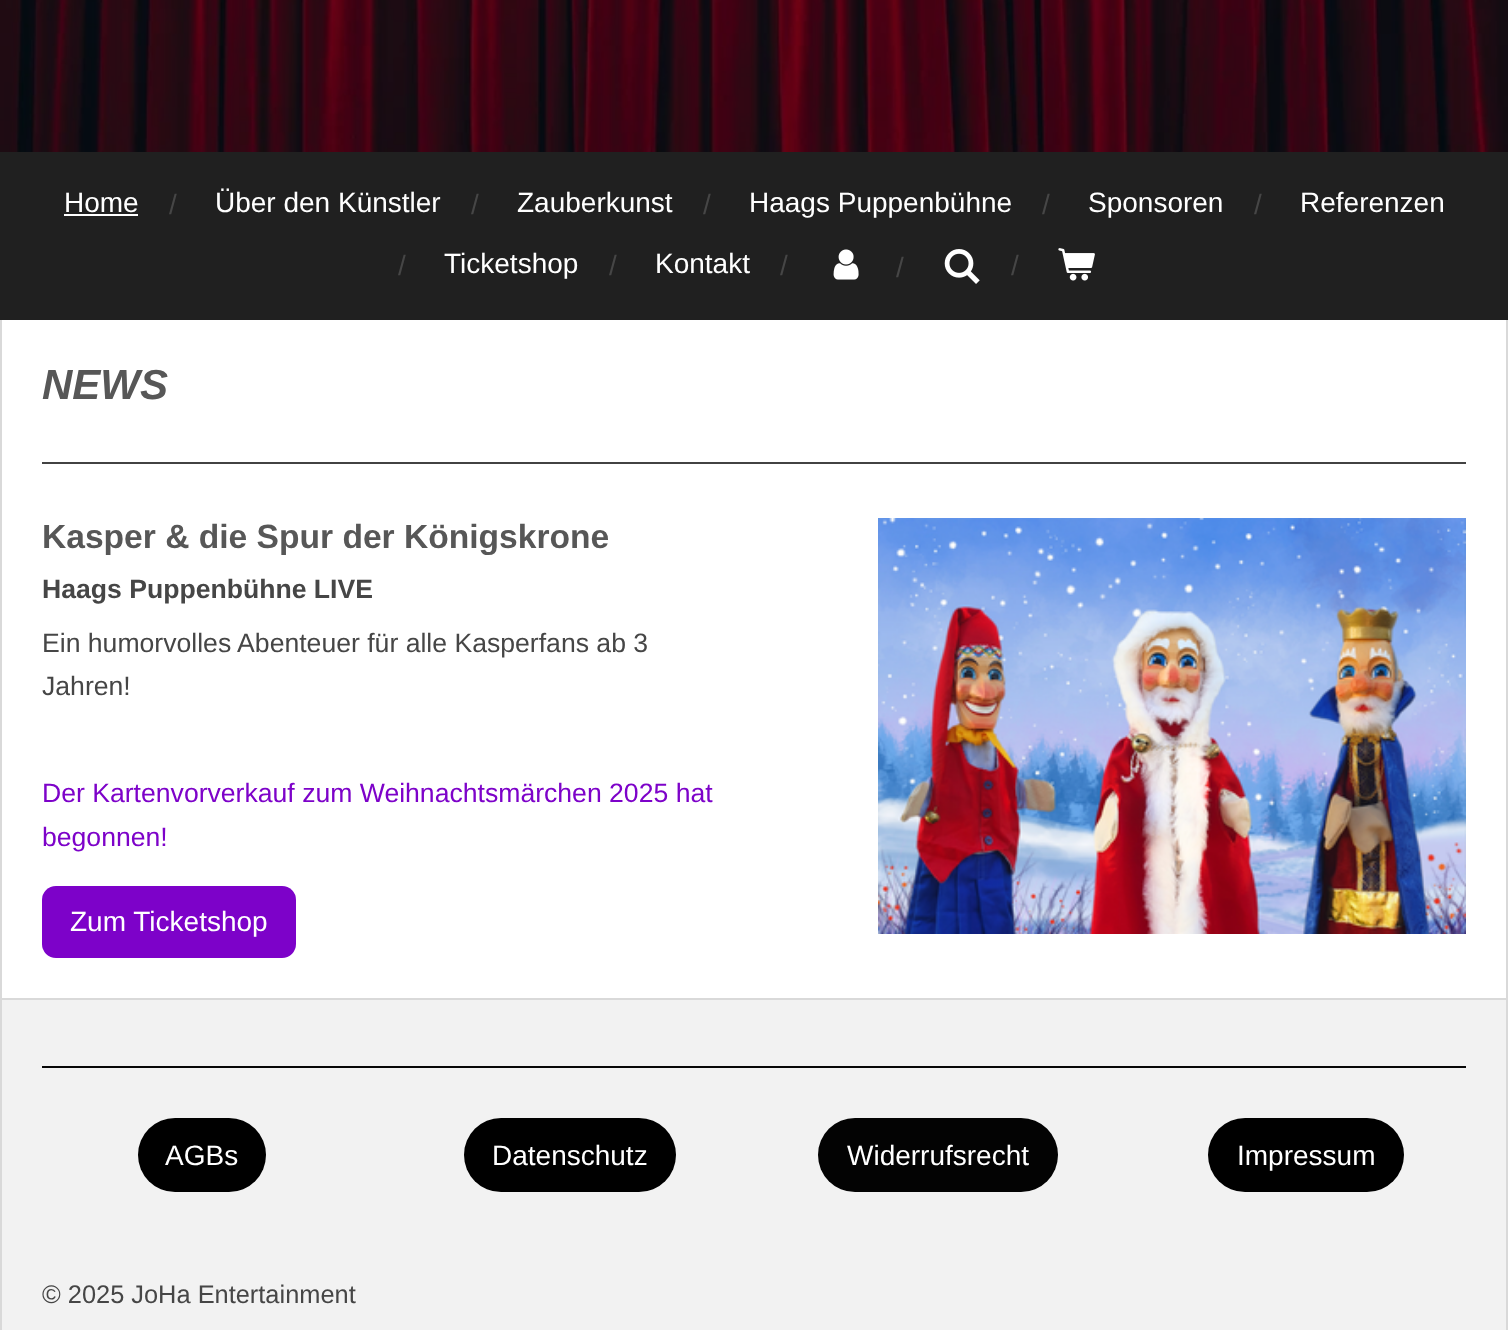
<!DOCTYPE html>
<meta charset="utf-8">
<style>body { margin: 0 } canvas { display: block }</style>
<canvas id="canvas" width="1508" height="1330"></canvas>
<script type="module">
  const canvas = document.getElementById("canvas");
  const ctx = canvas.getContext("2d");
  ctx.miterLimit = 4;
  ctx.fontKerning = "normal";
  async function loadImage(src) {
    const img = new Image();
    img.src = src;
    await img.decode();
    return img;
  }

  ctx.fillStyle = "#202020";
  ctx.fillRect(0, 0, 1508, 1330);
  ctx.drawImage(await loadImage("img1.png"), 0, 0, 1508, 152);
  ctx.font = "28px Liberation Sans";
  ctx.fillStyle = "#ffffff";
  ctx.fillText("Home", 64, 212);
  ctx.fillRect(64, 214, 74, 2);
  ctx.fillStyle = "#464646";
  ctx.fillText("/", 169, 214);
  ctx.fillStyle = "#ffffff";
  ctx.fillText("Über den Künstler", 215, 212);
  ctx.fillStyle = "#464646";
  ctx.fillText("/", 471, 214);
  ctx.fillStyle = "#ffffff";
  ctx.fillText("Zauberkunst", 517, 212);
  ctx.fillStyle = "#464646";
  ctx.fillText("/", 703, 214);
  ctx.fillStyle = "#ffffff";
  ctx.fillText("Haags Puppenbühne", 749, 212);
  ctx.fillStyle = "#464646";
  ctx.fillText("/", 1042, 214);
  ctx.fillStyle = "#ffffff";
  ctx.fillText("Sponsoren", 1088, 212);
  ctx.fillStyle = "#464646";
  ctx.fillText("/", 1254, 214);
  ctx.fillStyle = "#ffffff";
  ctx.fillText("Referenzen", 1300, 212);
  ctx.fillStyle = "#464646";
  ctx.fillText("/", 398, 275);
  ctx.fillStyle = "#ffffff";
  ctx.fillText("Ticketshop", 444, 273);
  ctx.fillStyle = "#464646";
  ctx.fillText("/", 609, 275);
  ctx.fillStyle = "#ffffff";
  ctx.fillText("Kontakt", 655, 273);
  ctx.fillStyle = "#464646";
  ctx.fillText("/", 780, 275);
  ctx.drawImage(await loadImage("img2.png"), 833, 249, 26, 31);
  ctx.fillText("/", 896, 277);
  ctx.drawImage(await loadImage("img3.png"), 944, 249, 36, 35);
  ctx.fillText("/", 1011, 275);
  ctx.drawImage(await loadImage("img4.png"), 1058, 248, 37, 33);
  ctx.fillStyle = "#ffffff";
  ctx.fillRect(2, 320, 1504, 678);
  ctx.fillStyle = "#d9d9d9";
  ctx.fillRect(1506, 320, 2, 678);
  ctx.fillRect(0, 320, 2, 678);
  ctx.font = "italic bold 42px Liberation Sans";
  ctx.fillStyle = "#575757";
  ctx.fillText("NEWS", 42, 399);
  ctx.fillStyle = "#424242";
  ctx.fillRect(42, 462, 1424, 2);
  ctx.font = "bold 33.6px Liberation Sans";
  ctx.fillStyle = "#575757";
  ctx.fillText("Kasper & die Spur der Königskrone", 42, 548);
  ctx.font = "bold 26.6px Liberation Sans";
  ctx.fillStyle = "#464646";
  ctx.fillText("Haags Puppenbühne LIVE", 42, 598);
  ctx.font = "26.6px Liberation Sans";
  ctx.fillText("Ein humorvolles Abenteuer für alle Kasperfans ab 3", 42, 652);
  ctx.fillText("Jahren!", 42, 695);
  ctx.fillStyle = "#7d02c9";
  ctx.fillText("Der Kartenvorverkauf zum Weihnachtsmärchen 2025 hat", 42, 802);
  ctx.fillText("begonnen!", 42, 846);
  ctx.beginPath();
  ctx.roundRect(42, 886, 254, 72, 14);
  ctx.fill();
  ctx.font = "28px Liberation Sans";
  ctx.fillStyle = "#ffffff";
  ctx.fillText("Zum Ticketshop", 70, 931);
  ctx.drawImage(await loadImage("img5.png"), 878, 518, 588, 416);
  ctx.fillStyle = "#f2f2f2";
  ctx.beginPath();
  ctx.rect(1, 999, 1506, 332);
  ctx.fill();
  ctx.strokeStyle = "#d9d9d9";
  ctx.lineWidth = 2;
  ctx.stroke();
  ctx.fillStyle = "#070707";
  ctx.fillRect(42, 1066, 1424, 2);
  ctx.fillStyle = "#000000";
  ctx.beginPath();
  ctx.roundRect(138, 1118, 128, 74, 37);
  ctx.fill();
  ctx.fillStyle = "#ffffff";
  ctx.fillText("AGBs", 165, 1165);
  ctx.fillStyle = "#000000";
  ctx.beginPath();
  ctx.roundRect(464, 1118, 212, 74, 37);
  ctx.fill();
  ctx.fillStyle = "#ffffff";
  ctx.fillText("Datenschutz", 492, 1165);
  ctx.fillStyle = "#030303";
  ctx.beginPath();
  ctx.roundRect(818, 1118, 240, 74, 37);
  ctx.fill();
  ctx.fillStyle = "#ffffff";
  ctx.fillText("Widerrufsrecht", 847, 1165);
  ctx.fillStyle = "#000000";
  ctx.beginPath();
  ctx.roundRect(1208, 1118, 196, 74, 37);
  ctx.fill();
  ctx.fillStyle = "#ffffff";
  ctx.fillText("Impressum", 1237, 1165);
  ctx.font = "25.4px Liberation Sans";
  ctx.fillStyle = "#464646";
  ctx.fillText("© 2025 JoHa Entertainment", 42, 1303);
</script>
